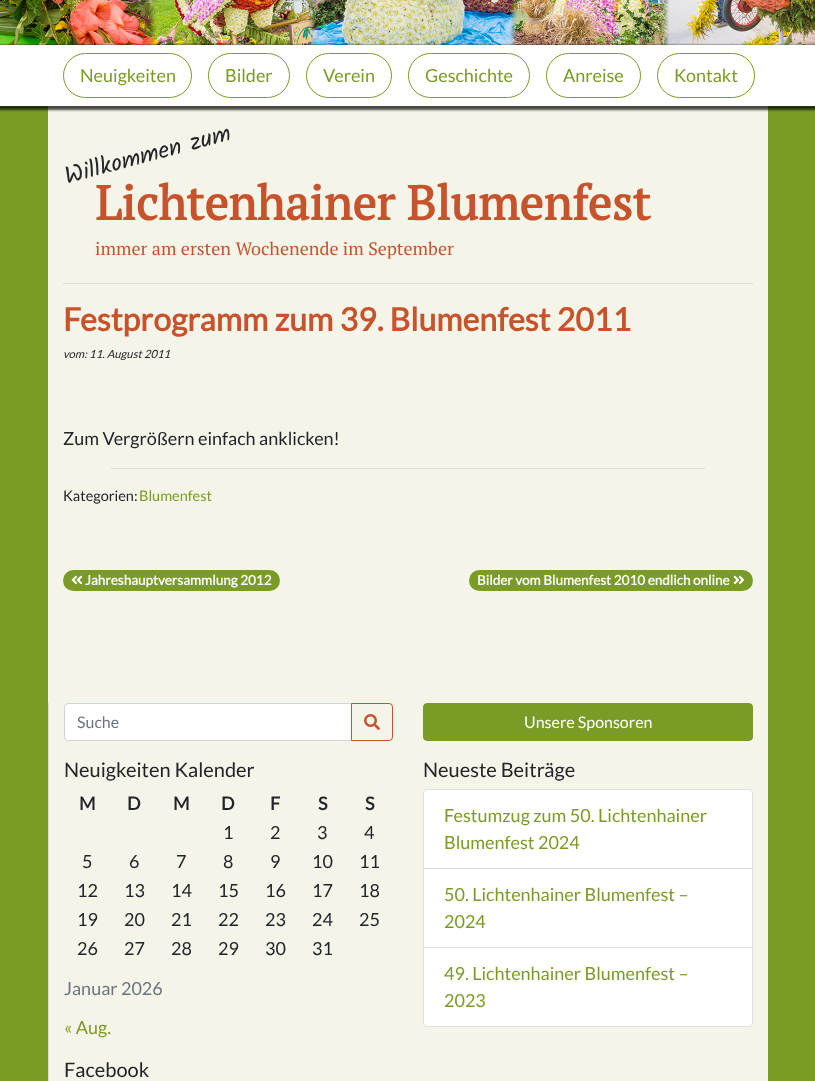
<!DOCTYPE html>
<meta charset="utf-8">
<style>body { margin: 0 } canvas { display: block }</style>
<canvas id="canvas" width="815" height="1081"></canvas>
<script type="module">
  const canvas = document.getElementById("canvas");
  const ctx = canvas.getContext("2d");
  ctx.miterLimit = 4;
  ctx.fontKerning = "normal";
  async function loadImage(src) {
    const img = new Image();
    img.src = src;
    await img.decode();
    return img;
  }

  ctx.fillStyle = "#7a9c27";
  ctx.fillRect(0, 0, 815, 1081);
  ctx.drawImage(await loadImage("img1.png"), 0, 0, 815, 45);
  ctx.fillStyle = "#f5f4e9";
  ctx.fillRect(48, 106, 720, 975);
  ctx.fillStyle = "rgba(0, 0, 0, 0.7)";
  ctx.filter = "blur(1px)";
  ctx.beginPath();
  ctx.rect(-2, 45, 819, 65);
  ctx.fill();
  ctx.filter = "none";
  ctx.fillStyle = "#ffffff";
  ctx.fillRect(0, 45, 815, 61);
  ctx.beginPath();
  ctx.roundRect(63.5, 53.5, 128, 44, 22);
  ctx.strokeStyle = "#7a9c27";
  ctx.stroke();
  ctx.font = "18px Lato";
  ctx.fillStyle = "#7a9c27";
  ctx.fillText("Neuigkeiten", 80, 82);
  ctx.beginPath();
  ctx.roundRect(208.5, 53.5, 81, 44, 22);
  ctx.stroke();
  ctx.fillText("Bilder", 225, 82);
  ctx.beginPath();
  ctx.roundRect(306.5, 53.5, 85, 44, 22);
  ctx.stroke();
  ctx.fillText("Verein", 323, 82);
  ctx.beginPath();
  ctx.roundRect(408.5, 53.5, 121, 44, 22);
  ctx.stroke();
  ctx.fillText("Geschichte", 425, 82);
  ctx.beginPath();
  ctx.roundRect(546.5, 53.5, 94, 44, 22);
  ctx.stroke();
  ctx.fillText("Anreise", 563, 82);
  ctx.beginPath();
  ctx.roundRect(657.5, 53.5, 97, 44, 22);
  ctx.stroke();
  ctx.fillText("Kontakt", 674, 82);
  ctx.font = "24px Kalam";
  ctx.fillStyle = "#212529";
  ctx.save();
  ctx.translate(67, 184);
  ctx.rotate(-15 * Math.PI / 180);
  ctx.fillText("Willkommen zum", 0, 0);
  ctx.restore();
  ctx.font = "bold 48px PT Serif";
  ctx.fillStyle = "#c7532d";
  ctx.fillText("Lichtenhainer Blumenfest", 95, 220);
  ctx.font = "18px PT Serif";
  ctx.fillText("immer am ersten Wochenende im September", 95, 255);
  ctx.fillStyle = "#dddcd2";
  ctx.fillRect(63, 283, 690, 1);
  ctx.font = "bold 32px Lato";
  ctx.fillStyle = "#c7532d";
  ctx.fillText("Festprogramm zum 39. Blumenfest 2011", 63, 331);
  ctx.font = "italic 11.25px Lato";
  ctx.fillStyle = "#212529";
  ctx.fillText("vom: 11. August 2011", 63, 358);
  ctx.font = "18px Lato";
  ctx.fillText("Zum Vergrößern einfach anklicken!", 63, 445);
  ctx.fillStyle = "#dddcd2";
  ctx.fillRect(111, 468, 594, 1);
  ctx.font = "14.5px Lato";
  ctx.fillStyle = "#212529";
  ctx.fillText("Kategorien:", 63, 501);
  ctx.fillStyle = "#7a9c27";
  ctx.fillText("Blumenfest", 139, 501);
  ctx.beginPath();
  ctx.roundRect(63, 570, 217, 21, 10.5);
  ctx.fill();
  ctx.drawImage(await loadImage("img2.png"), 71, 575, 12, 10);
  ctx.font = "bold 13.5px Lato";
  ctx.fillStyle = "#f8f9fa";
  ctx.fillText("Jahreshauptversammlung 2012", 85, 585);
  ctx.fillStyle = "#7a9c27";
  ctx.beginPath();
  ctx.roundRect(469, 570, 284, 21, 10.5);
  ctx.fill();
  ctx.fillStyle = "#f8f9fa";
  ctx.fillText("Bilder vom Blumenfest 2010 endlich online", 477, 585);
  ctx.drawImage(await loadImage("img3.png"), 733, 575, 12, 10);
  ctx.fillStyle = "#dddcd2";
  ctx.fillRect(48, 703, 1, 378);
  ctx.fillStyle = "#ffffff";
  ctx.beginPath();
  ctx.roundRect(64.5, 703.5, 287, 37, [3.5, 0, 0, 3.5]);
  ctx.fill();
  ctx.strokeStyle = "#ced4da";
  ctx.stroke();
  ctx.font = "16px Lato";
  ctx.fillStyle = "#6c757d";
  ctx.fillText("Suche", 77, 728);
  ctx.beginPath();
  ctx.roundRect(351.5, 703.5, 41, 37, [0, 3.5, 3.5, 0]);
  ctx.strokeStyle = "#c7532d";
  ctx.stroke();
  ctx.drawImage(await loadImage("img4.png"), 364, 714, 16, 16);
  ctx.fillStyle = "#7a9c27";
  ctx.beginPath();
  ctx.roundRect(423.5, 703.5, 329, 37, 3.5);
  ctx.fill();
  ctx.strokeStyle = "#7a9c27";
  ctx.stroke();
  ctx.fillStyle = "#ffffff";
  ctx.fillText("Unsere Sponsoren", 524, 728);
  ctx.font = "20px Lato";
  ctx.fillStyle = "#212529";
  ctx.fillText("Neuigkeiten Kalender", 64, 777);
  ctx.font = "bold 18px Lato";
  ctx.fillText("M", 79, 810);
  ctx.fillText("D", 127, 810);
  ctx.fillText("M", 173, 810);
  ctx.fillText("D", 221, 810);
  ctx.fillText("F", 270, 810);
  ctx.fillText("S", 318, 810);
  ctx.fillText("S", 365, 810);
  ctx.font = "18px Lato";
  ctx.fillText("1", 223, 839);
  ctx.fillText("2", 270, 839);
  ctx.fillText("3", 317, 839);
  ctx.fillText("4", 364, 839);
  ctx.fillText("5", 82, 868);
  ctx.fillText("6", 129, 868);
  ctx.fillText("7", 176, 868);
  ctx.fillText("8", 223, 868);
  ctx.fillText("9", 270, 868);
  ctx.fillText("10", 312, 868);
  ctx.fillText("11", 359, 868);
  ctx.fillText("12", 77, 897);
  ctx.fillText("13", 124, 897);
  ctx.fillText("14", 171, 897);
  ctx.fillText("15", 218, 897);
  ctx.fillText("16", 265, 897);
  ctx.fillText("17", 312, 897);
  ctx.fillText("18", 359, 897);
  ctx.fillText("19", 77, 926);
  ctx.fillText("20", 124, 926);
  ctx.fillText("21", 171, 926);
  ctx.fillText("22", 218, 926);
  ctx.fillText("23", 265, 926);
  ctx.fillText("24", 312, 926);
  ctx.fillText("25", 359, 926);
  ctx.fillText("26", 77, 955);
  ctx.fillText("27", 124, 955);
  ctx.fillText("28", 171, 955);
  ctx.fillText("29", 218, 955);
  ctx.fillText("30", 265, 955);
  ctx.fillText("31", 312, 955);
  ctx.fillStyle = "#6c757d";
  ctx.fillText("Januar 2026", 64, 995);
  ctx.fillStyle = "#7a9c27";
  ctx.fillText("« Aug.", 64, 1034);
  ctx.font = "20px Lato";
  ctx.fillStyle = "#212529";
  ctx.fillText("Neueste Beiträge", 423, 777);
  ctx.fillStyle = "#ffffff";
  ctx.beginPath();
  ctx.roundRect(423, 789, 330, 80, [4, 4, 0, 0]);
  ctx.fill();
  ctx.beginPath();
  ctx.roundRect(423.5, 789.5, 329, 79, [3.5, 3.5, 0, 0]);
  ctx.strokeStyle = "rgba(0, 0, 0, 0.12)";
  ctx.stroke();
  ctx.font = "18px Lato";
  ctx.fillStyle = "#7a9c27";
  ctx.fillText("Festumzug zum 50. Lichtenhainer", 444, 822);
  ctx.fillText("Blumenfest 2024", 444, 849);
  ctx.fillStyle = "#ffffff";
  ctx.beginPath();
  ctx.rect(423.5, 868.5, 329, 79);
  ctx.fill();
  ctx.strokeStyle = "#dfdfdf";
  ctx.stroke();
  ctx.fillStyle = "#7a9c27";
  ctx.fillText("50. Lichtenhainer Blumenfest –", 444, 901);
  ctx.fillText("2024", 444, 928);
  ctx.fillStyle = "#ffffff";
  ctx.beginPath();
  ctx.roundRect(423, 947, 330, 80, [0, 0, 4, 4]);
  ctx.fill();
  ctx.beginPath();
  ctx.roundRect(423.5, 947.5, 329, 79, [0, 0, 3.5, 3.5]);
  ctx.strokeStyle = "rgba(0, 0, 0, 0.12)";
  ctx.stroke();
  ctx.fillStyle = "#7a9c27";
  ctx.fillText("49. Lichtenhainer Blumenfest –", 444, 980);
  ctx.fillText("2023", 444, 1007);
  ctx.font = "20px Lato";
  ctx.fillStyle = "#212529";
  ctx.fillText("Facebook", 64, 1077);
</script>
